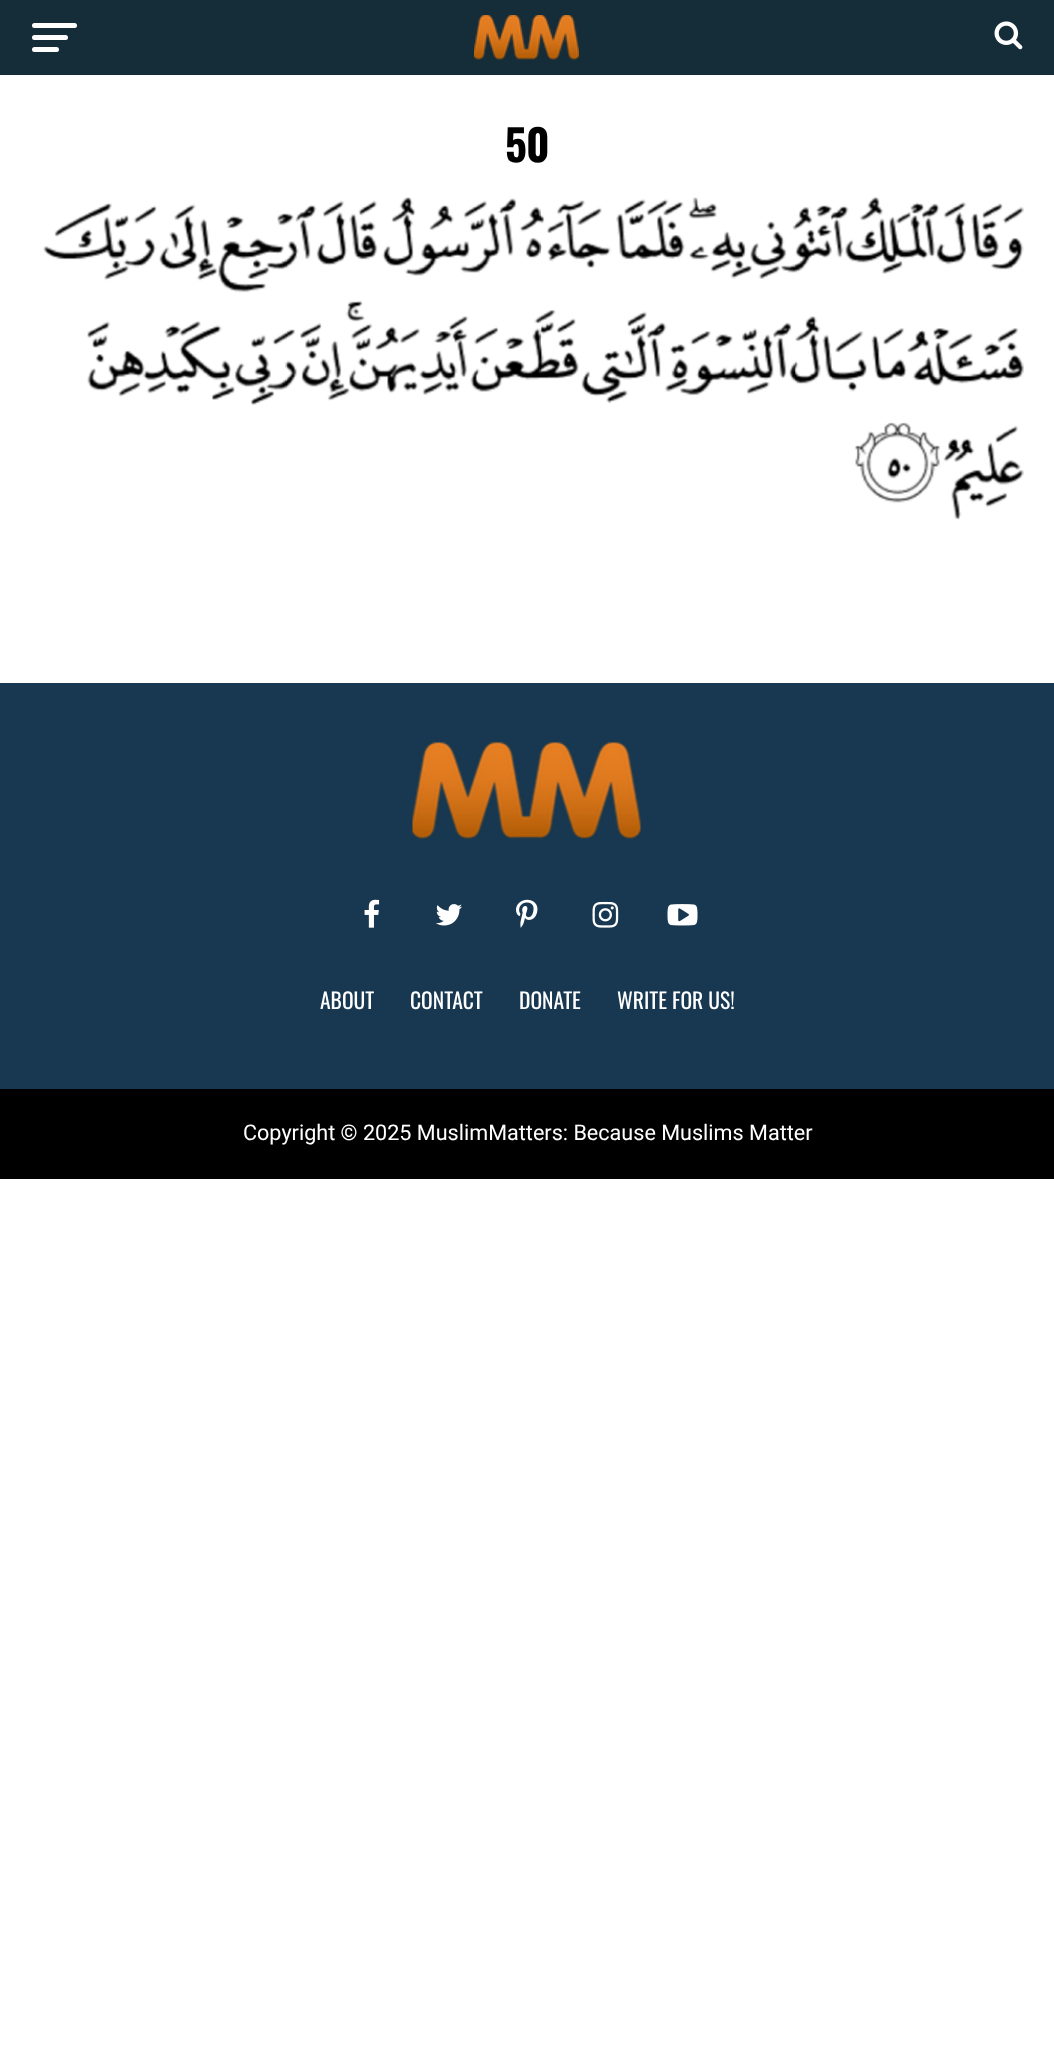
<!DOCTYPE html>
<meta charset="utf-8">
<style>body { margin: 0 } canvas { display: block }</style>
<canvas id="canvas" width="1054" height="2067"></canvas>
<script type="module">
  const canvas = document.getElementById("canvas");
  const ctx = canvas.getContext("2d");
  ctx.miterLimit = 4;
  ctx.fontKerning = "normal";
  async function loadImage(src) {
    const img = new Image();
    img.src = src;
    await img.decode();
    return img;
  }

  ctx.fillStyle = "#ffffff";
  ctx.fillRect(0, 0, 1054, 2067);
  ctx.fillStyle = "#152c39";
  ctx.fillRect(0, 0, 1054, 75);
  ctx.fillStyle = "#ffffff";
  ctx.beginPath();
  ctx.roundRect(32, 23, 45, 5, 2.5);
  ctx.fill();
  ctx.beginPath();
  ctx.roundRect(32, 35, 36, 5, 2.5);
  ctx.fill();
  ctx.beginPath();
  ctx.roundRect(32, 47, 27, 5, 2.5);
  ctx.fill();
  ctx.drawImage(await loadImage("img1.png"), 474, 15, 105, 45);
  ctx.drawImage(await loadImage("img2.png"), 994, 21, 29, 29);
  ctx.letterSpacing = "-1px";
  ctx.font = "bold 43px Oswald";
  ctx.fillStyle = "#000000";
  ctx.fillText("50", 505, 162);
  ctx.drawImage(await loadImage("img3.png"), 43, 197, 981, 323);
  ctx.fillStyle = "#173850";
  ctx.fillRect(0, 683, 1054, 406);
  ctx.drawImage(await loadImage("img4.png"), 412, 742, 229, 97);
  ctx.drawImage(await loadImage("img5.png"), 364, 899, 16, 29);
  ctx.drawImage(await loadImage("img6.png"), 436, 904, 26, 22);
  ctx.drawImage(await loadImage("img7.png"), 516, 899, 22, 29);
  ctx.drawImage(await loadImage("img8.png"), 592, 901, 27, 27);
  ctx.drawImage(await loadImage("img9.png"), 667, 904, 31, 22);
  ctx.letterSpacing = "0px";
  ctx.font = "21.6px Oswald";
  ctx.fillStyle = "#ffffff";
  ctx.fillText("ABOUT", 320, 1009);
  ctx.fillText("CONTACT", 410, 1009);
  ctx.fillText("DONATE", 519, 1009);
  ctx.fillText("WRITE FOR US!", 617, 1009);
  ctx.fillStyle = "#000000";
  ctx.fillRect(0, 1089, 1054, 90);
  ctx.font = "21.6px Roboto";
  ctx.fillStyle = "#ffffff";
  ctx.fillText("Copyright © 2025 MuslimMatters: Because Muslims Matter", 243, 1140);
</script>
